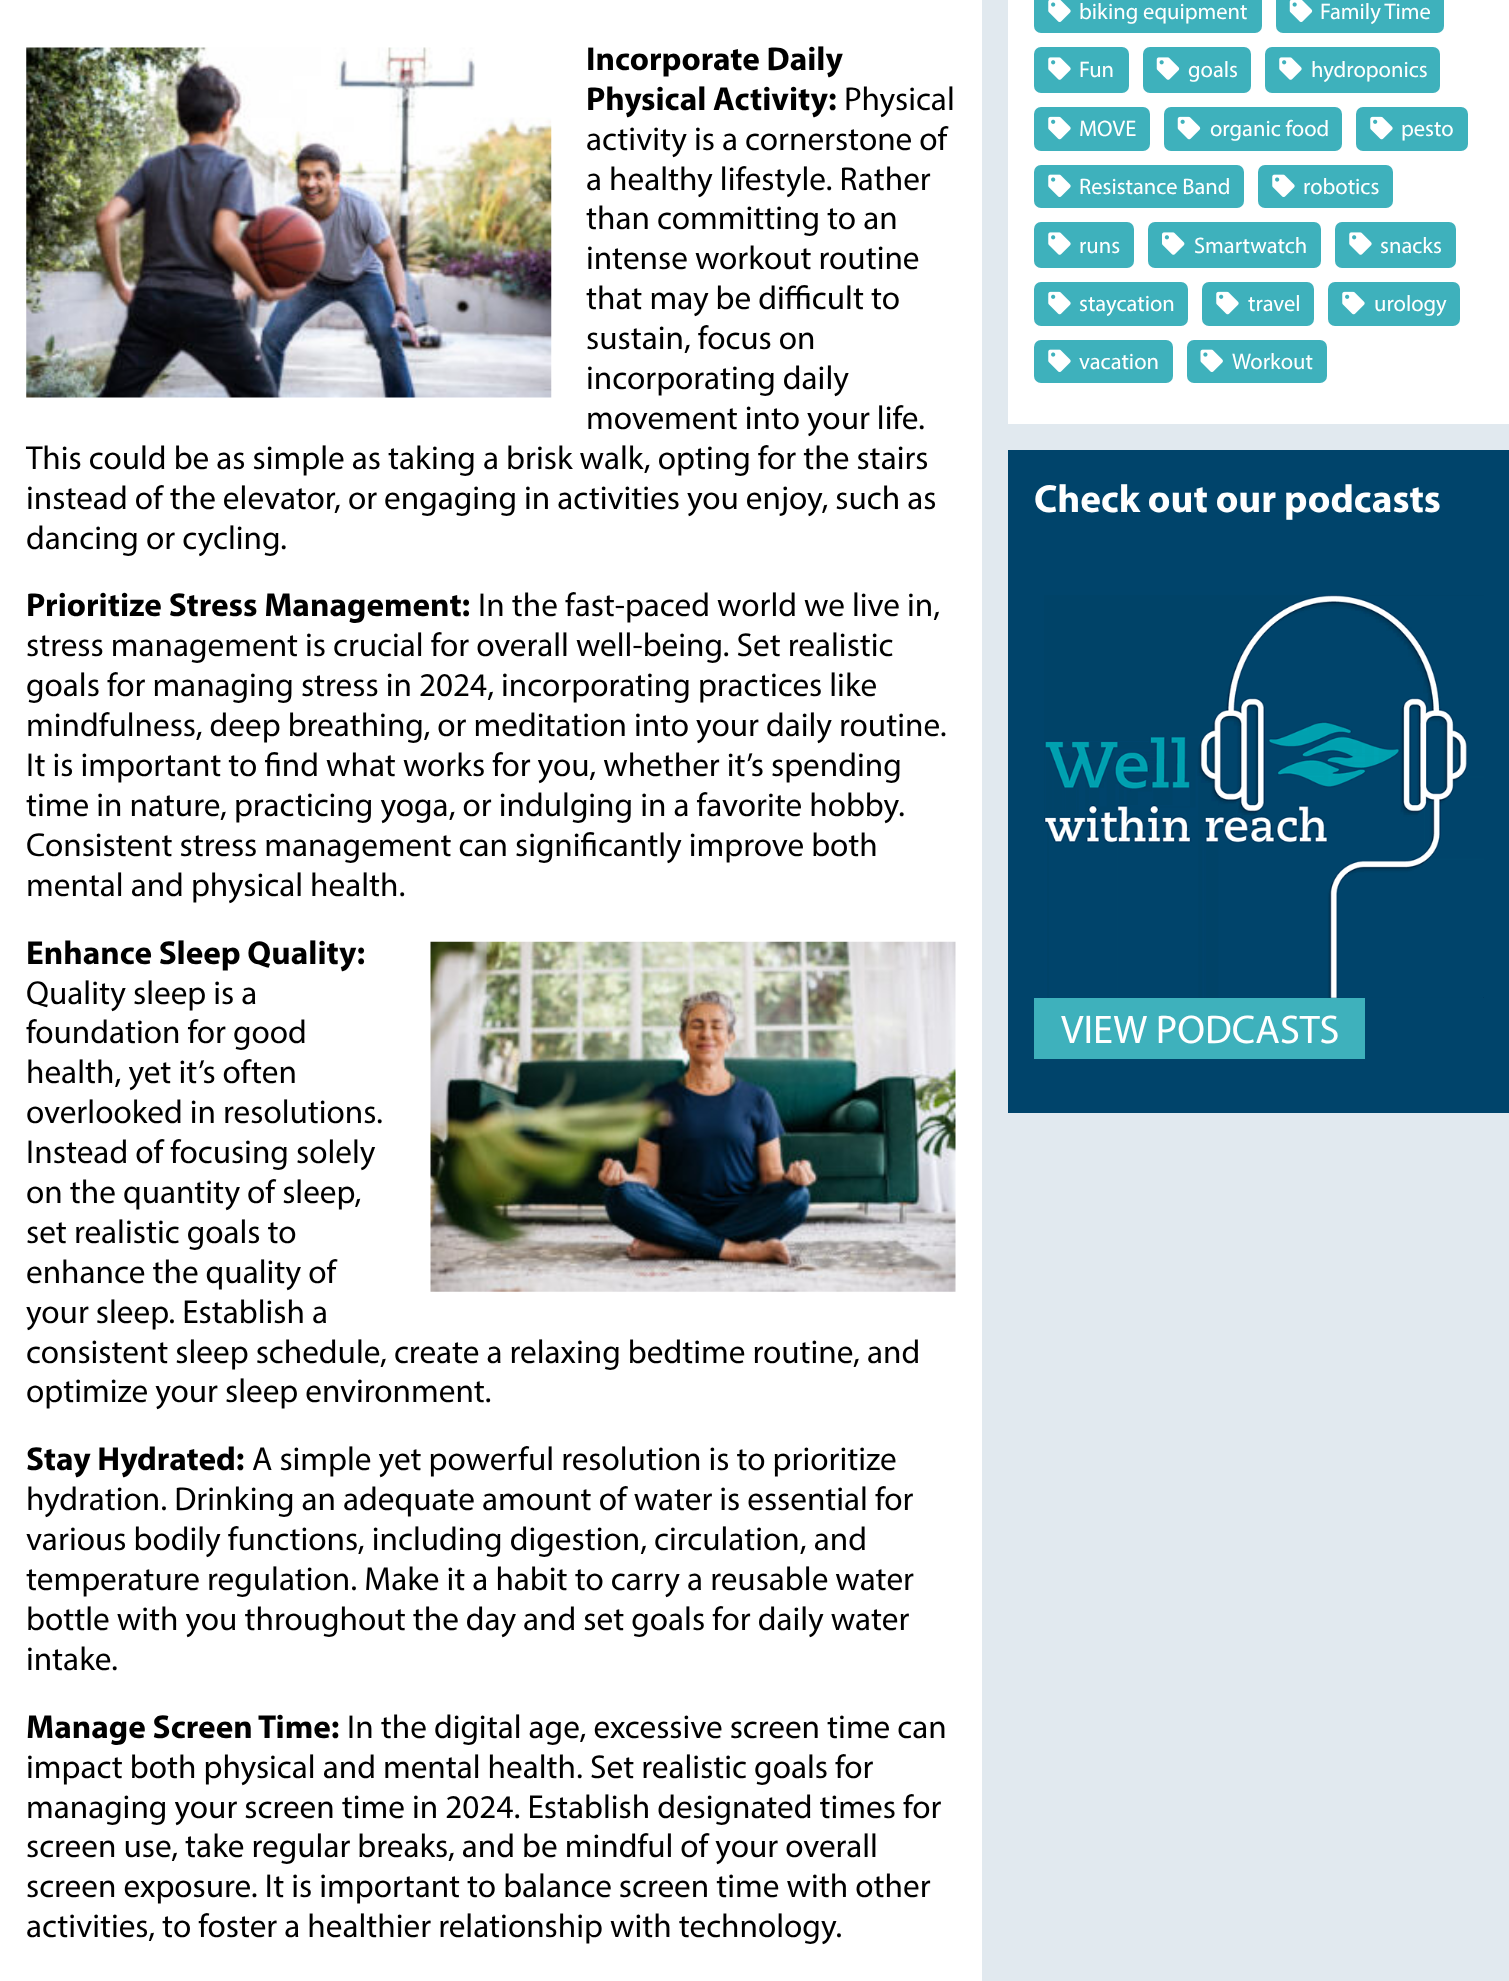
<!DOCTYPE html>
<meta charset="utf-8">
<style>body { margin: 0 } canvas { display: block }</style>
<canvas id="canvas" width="1509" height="1981"></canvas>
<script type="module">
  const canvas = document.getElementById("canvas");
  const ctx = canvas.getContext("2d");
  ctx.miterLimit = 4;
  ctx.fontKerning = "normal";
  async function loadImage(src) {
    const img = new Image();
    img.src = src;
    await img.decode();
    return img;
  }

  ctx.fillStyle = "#e1e9ef";
  ctx.fillRect(0, 0, 1509, 1981);
  ctx.fillStyle = "#ffffff";
  ctx.fillRect(0, 0, 982, 1981);
  ctx.drawImage(await loadImage("img1.png"), 26, 47, 526, 351);
  ctx.font = "bold 33.25px Myriad";
  ctx.fillStyle = "#000000";
  ctx.fillText("Incorporate Daily", 586, 70);
  ctx.fillText("Physical Activity:", 586, 110);
  ctx.font = "33.25px Myriad";
  ctx.fillText("Physical", 844, 110);
  ctx.fillText("activity is a cornerstone of", 586, 150);
  ctx.fillText("a healthy lifestyle. Rather", 586, 190);
  ctx.fillText("than committing to an", 586, 229);
  ctx.fillText("intense workout routine", 586, 269);
  ctx.fillText("that may be difficult to", 586, 309);
  ctx.fillText("sustain, focus on", 586, 349);
  ctx.fillText("incorporating daily", 586, 389);
  ctx.fillText("movement into your life.", 586, 429);
  ctx.fillText("This could be as simple as taking a brisk walk, opting for the stairs", 26, 469);
  ctx.fillText("instead of the elevator, or engaging in activities you enjoy, such as", 26, 509);
  ctx.fillText("dancing or cycling.", 26, 549);
  ctx.font = "bold 33.25px Myriad";
  ctx.fillText("Prioritize Stress Management:", 26, 616);
  ctx.font = "33.25px Myriad";
  ctx.fillText("In the fast-paced world we live in,", 478, 616);
  ctx.fillText("stress management is crucial for overall well-being. Set realistic", 26, 656);
  ctx.fillText("goals for managing stress in 2024, incorporating practices like", 26, 696);
  ctx.fillText("mindfulness, deep breathing, or meditation into your daily routine.", 26, 736);
  ctx.fillText("It is important to find what works for you, whether it’s spending", 26, 776);
  ctx.fillText("time in nature, practicing yoga, or indulging in a favorite hobby.", 26, 816);
  ctx.fillText("Consistent stress management can significantly improve both", 26, 856);
  ctx.fillText("mental and physical health.", 26, 896);
  ctx.font = "bold 33.25px Myriad";
  ctx.fillText("Enhance Sleep Quality:", 26, 964);
  ctx.drawImage(await loadImage("img2.png"), 430, 941, 526, 351);
  ctx.font = "33.25px Myriad";
  ctx.fillText("Quality sleep is a", 26, 1004);
  ctx.fillText("foundation for good", 26, 1043);
  ctx.fillText("health, yet it’s often", 26, 1083);
  ctx.fillText("overlooked in resolutions.", 26, 1123);
  ctx.fillText("Instead of focusing solely", 26, 1163);
  ctx.fillText("on the quantity of sleep,", 26, 1203);
  ctx.fillText("set realistic goals to", 26, 1243);
  ctx.fillText("enhance the quality of", 26, 1283);
  ctx.fillText("your sleep. Establish a", 26, 1323);
  ctx.fillText("consistent sleep schedule, create a relaxing bedtime routine, and", 26, 1363);
  ctx.fillText("optimize your sleep environment.", 26, 1402);
  ctx.font = "bold 33.25px Myriad";
  ctx.fillText("Stay Hydrated:", 26, 1470);
  ctx.font = "33.25px Myriad";
  ctx.fillText("A simple yet powerful resolution is to prioritize", 252, 1470);
  ctx.fillText("hydration. Drinking an adequate amount of water is essential for", 26, 1510);
  ctx.fillText("various bodily functions, including digestion, circulation, and", 26, 1550);
  ctx.fillText("temperature regulation. Make it a habit to carry a reusable water", 26, 1590);
  ctx.fillText("bottle with you throughout the day and set goals for daily water", 26, 1630);
  ctx.fillText("intake.", 26, 1670);
  ctx.font = "bold 33.25px Myriad";
  ctx.fillText("Manage Screen Time:", 26, 1738);
  ctx.font = "33.25px Myriad";
  ctx.fillText("In the digital age, excessive screen time can", 347, 1738);
  ctx.fillText("impact both physical and mental health. Set realistic goals for", 26, 1778);
  ctx.fillText("managing your screen time in 2024. Establish designated times for", 26, 1818);
  ctx.fillText("screen use, take regular breaks, and be mindful of your overall", 26, 1857);
  ctx.fillText("screen exposure. It is important to balance screen time with other", 26, 1897);
  ctx.fillText("activities, to foster a healthier relationship with technology.", 26, 1937);
  ctx.fillStyle = "#ffffff";
  ctx.fillRect(1008, 0, 501, 424);
  ctx.fillStyle = "#3eb1bc";
  ctx.beginPath();
  ctx.roundRect(1034, -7, 228, 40, 7);
  ctx.fill();
  ctx.drawImage(await loadImage("img3.png"), 1048, 0, 23, 22);
  ctx.font = "22.5px Myriad";
  ctx.fillStyle = "#ffffff";
  ctx.fillText("biking equipment", 1079, 19);
  ctx.fillStyle = "#3eb1bc";
  ctx.beginPath();
  ctx.roundRect(1276, -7, 168, 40, 7);
  ctx.fill();
  ctx.drawImage(await loadImage("img4.png"), 1289, 0, 24, 22);
  ctx.fillStyle = "#ffffff";
  ctx.fillText("Family Time", 1320, 19);
  ctx.fillStyle = "#3eb1bc";
  ctx.beginPath();
  ctx.roundRect(1034, 47, 95, 46, 7);
  ctx.fill();
  ctx.drawImage(await loadImage("img5.png"), 1048, 57, 23, 23);
  ctx.fillStyle = "#ffffff";
  ctx.fillText("Fun", 1079, 77);
  ctx.fillStyle = "#3eb1bc";
  ctx.beginPath();
  ctx.roundRect(1143, 47, 108, 46, 7);
  ctx.fill();
  ctx.drawImage(await loadImage("img6.png"), 1156, 57, 24, 23);
  ctx.fillStyle = "#ffffff";
  ctx.fillText("goals", 1188, 77);
  ctx.fillStyle = "#3eb1bc";
  ctx.beginPath();
  ctx.roundRect(1265, 47, 175, 46, 7);
  ctx.fill();
  ctx.drawImage(await loadImage("img5.png"), 1279, 57, 23, 23);
  ctx.fillStyle = "#ffffff";
  ctx.fillText("hydroponics", 1311, 77);
  ctx.fillStyle = "#3eb1bc";
  ctx.beginPath();
  ctx.roundRect(1034, 107, 116, 44, 7);
  ctx.fill();
  ctx.drawImage(await loadImage("img7.png"), 1048, 116, 23, 24);
  ctx.fillStyle = "#ffffff";
  ctx.fillText("MOVE", 1079, 136);
  ctx.fillStyle = "#3eb1bc";
  ctx.beginPath();
  ctx.roundRect(1164, 107, 178, 44, 7);
  ctx.fill();
  ctx.drawImage(await loadImage("img8.png"), 1177, 116, 24, 24);
  ctx.fillStyle = "#ffffff";
  ctx.fillText("organic food", 1210, 136);
  ctx.fillStyle = "#3eb1bc";
  ctx.beginPath();
  ctx.roundRect(1356, 107, 112, 44, 7);
  ctx.fill();
  ctx.drawImage(await loadImage("img7.png"), 1370, 116, 23, 24);
  ctx.fillStyle = "#ffffff";
  ctx.fillText("pesto", 1401, 136);
  ctx.fillStyle = "#3eb1bc";
  ctx.beginPath();
  ctx.roundRect(1034, 165, 210, 43, 7);
  ctx.fill();
  ctx.drawImage(await loadImage("img9.png"), 1048, 174, 23, 23);
  ctx.fillStyle = "#ffffff";
  ctx.fillText("Resistance Band", 1079, 194);
  ctx.fillStyle = "#3eb1bc";
  ctx.beginPath();
  ctx.roundRect(1258, 165, 135, 43, 7);
  ctx.fill();
  ctx.drawImage(await loadImage("img9.png"), 1272, 174, 23, 23);
  ctx.fillStyle = "#ffffff";
  ctx.fillText("robotics", 1303, 194);
  ctx.fillStyle = "#3eb1bc";
  ctx.beginPath();
  ctx.roundRect(1034, 222, 100, 46, 7);
  ctx.fill();
  ctx.drawImage(await loadImage("img5.png"), 1048, 232, 23, 23);
  ctx.fillStyle = "#ffffff";
  ctx.fillText("runs", 1079, 253);
  ctx.fillStyle = "#3eb1bc";
  ctx.beginPath();
  ctx.roundRect(1148, 222, 173, 46, 7);
  ctx.fill();
  ctx.drawImage(await loadImage("img10.png"), 1162, 232, 23, 23);
  ctx.fillStyle = "#ffffff";
  ctx.fillText("Smartwatch", 1194, 253);
  ctx.fillStyle = "#3eb1bc";
  ctx.beginPath();
  ctx.roundRect(1335, 222, 121, 46, 7);
  ctx.fill();
  ctx.drawImage(await loadImage("img5.png"), 1349, 232, 23, 23);
  ctx.fillStyle = "#ffffff";
  ctx.fillText("snacks", 1380, 253);
  ctx.fillStyle = "#3eb1bc";
  ctx.beginPath();
  ctx.roundRect(1034, 282, 154, 44, 7);
  ctx.fill();
  ctx.drawImage(await loadImage("img7.png"), 1048, 291, 23, 24);
  ctx.fillStyle = "#ffffff";
  ctx.fillText("staycation", 1079, 311);
  ctx.fillStyle = "#3eb1bc";
  ctx.beginPath();
  ctx.roundRect(1202, 282, 112, 44, 7);
  ctx.fill();
  ctx.drawImage(await loadImage("img7.png"), 1216, 291, 23, 24);
  ctx.fillStyle = "#ffffff";
  ctx.fillText("travel", 1248, 311);
  ctx.fillStyle = "#3eb1bc";
  ctx.beginPath();
  ctx.roundRect(1328, 282, 132, 44, 7);
  ctx.fill();
  ctx.drawImage(await loadImage("img7.png"), 1342, 291, 23, 24);
  ctx.fillStyle = "#ffffff";
  ctx.fillText("urology", 1374, 311);
  ctx.fillStyle = "#3eb1bc";
  ctx.beginPath();
  ctx.roundRect(1034, 340, 139, 43, 7);
  ctx.fill();
  ctx.drawImage(await loadImage("img9.png"), 1048, 349, 23, 23);
  ctx.fillStyle = "#ffffff";
  ctx.fillText("vacation", 1079, 369);
  ctx.fillStyle = "#3eb1bc";
  ctx.beginPath();
  ctx.roundRect(1187, 340, 140, 43, 7);
  ctx.fill();
  ctx.drawImage(await loadImage("img11.png"), 1200, 349, 23, 23);
  ctx.fillStyle = "#ffffff";
  ctx.fillText("Workout", 1232, 369);
  ctx.fillStyle = "#00446b";
  ctx.fillRect(1008, 450, 501, 663);
  ctx.font = "bold 39.25px Myriad";
  ctx.fillStyle = "#ffffff";
  ctx.fillText("Check out our podcasts", 1034, 512);
  ctx.drawImage(await loadImage("img12.png"), 1044, 595, 440, 403);
  ctx.fillStyle = "#3eb1bc";
  ctx.fillRect(1034, 998, 331, 61);
  ctx.font = "40.25px Myriad";
  ctx.fillStyle = "#ffffff";
  ctx.fillText("VIEW PODCASTS", 1061, 1043);
</script>
